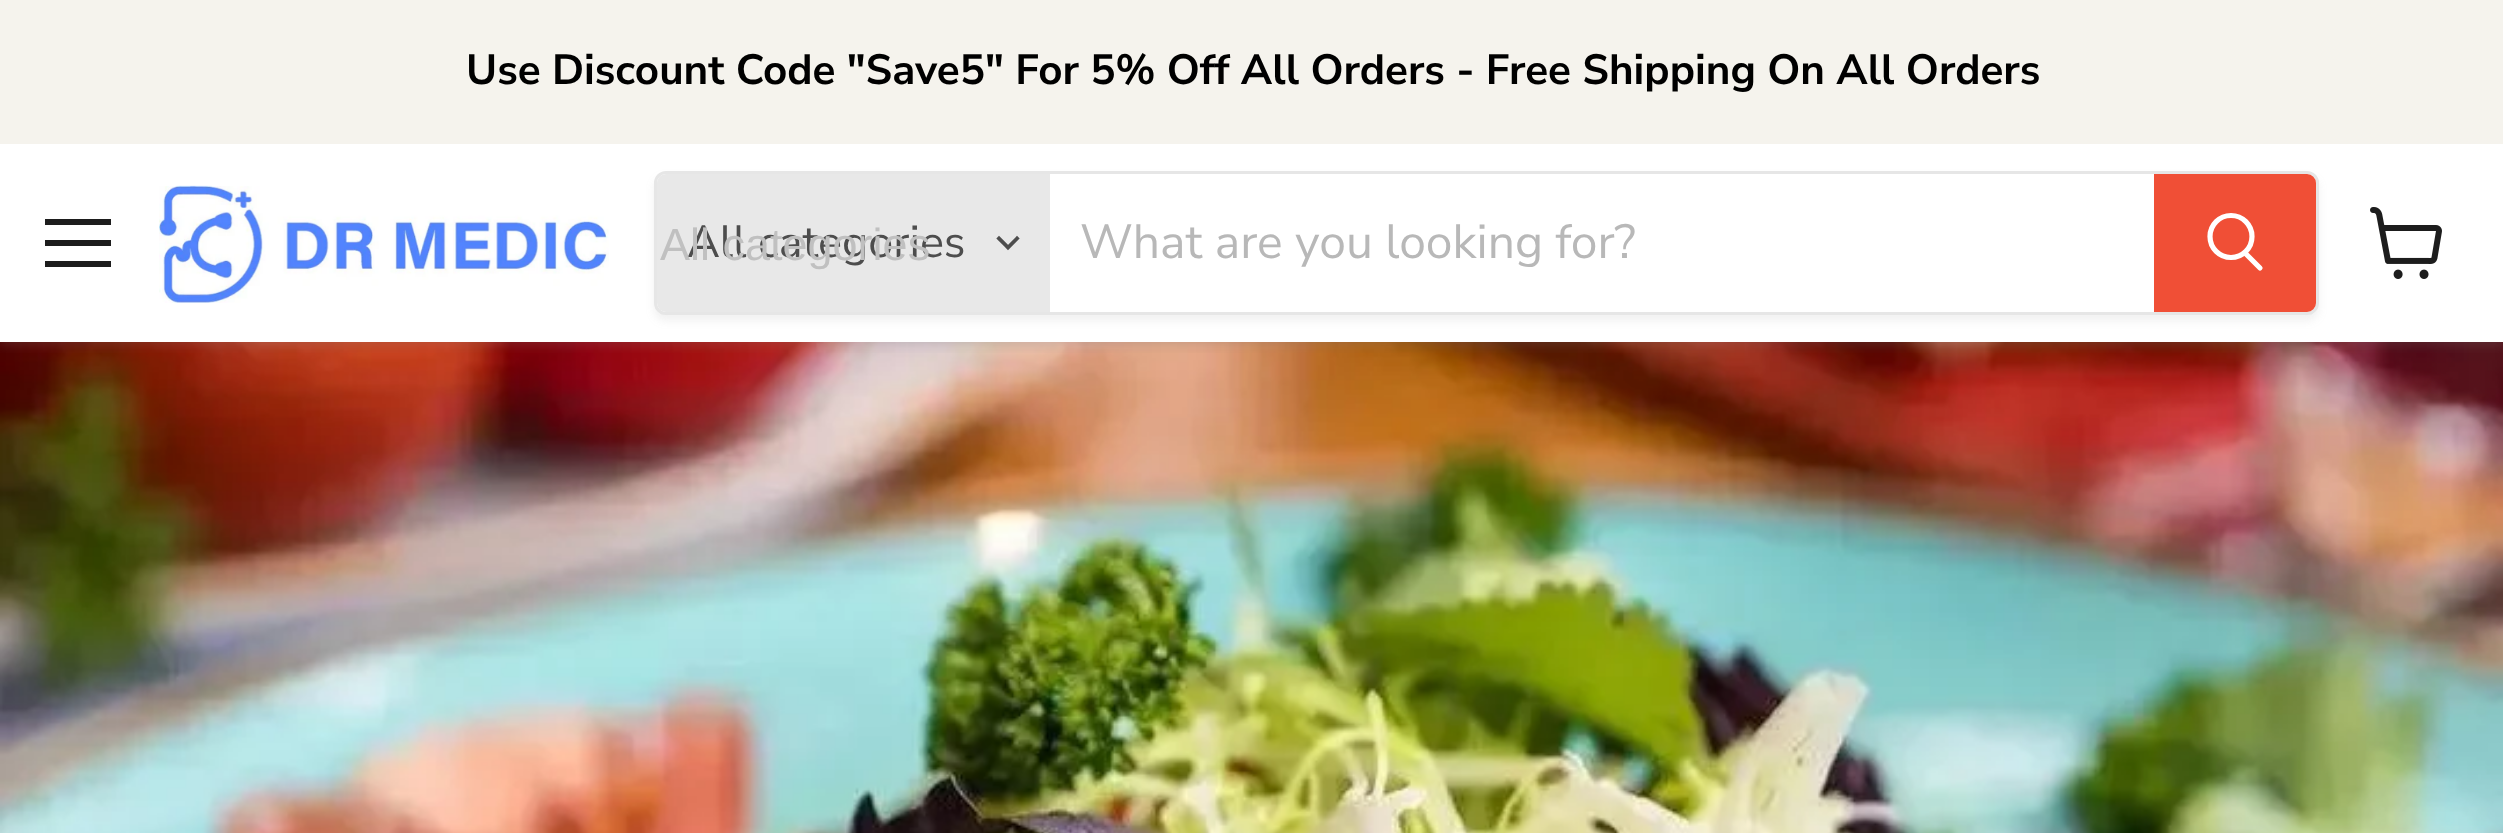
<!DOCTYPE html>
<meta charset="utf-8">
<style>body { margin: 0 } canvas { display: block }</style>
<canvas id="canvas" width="2503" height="833"></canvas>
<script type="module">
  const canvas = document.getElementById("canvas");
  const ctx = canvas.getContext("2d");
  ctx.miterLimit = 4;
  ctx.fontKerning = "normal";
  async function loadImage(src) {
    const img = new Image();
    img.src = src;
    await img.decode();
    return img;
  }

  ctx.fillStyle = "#ffffff";
  ctx.fillRect(0, 0, 2503, 833);
  ctx.drawImage(await loadImage("img3.png"), 0, 342, 2503, 491);
  ctx.save();
  ctx.beginPath();
  ctx.rect(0, 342, 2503, 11);
  ctx.clip();
  ctx.fillStyle = "rgba(128, 128, 128, 0.25)";
  ctx.filter = "blur(6px)";
  ctx.beginPath();
  ctx.rect(0, 147, 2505, 198);
  ctx.fill();
  ctx.filter = "none";
  ctx.restore();
  ctx.fillStyle = "#f5f3ed";
  ctx.fillRect(0, 0, 2503, 144);
  ctx.wordSpacing = "-0.1px";
  ctx.font = "bold 42.2px Nunito Sans";
  ctx.fillStyle = "#000000";
  ctx.fillText("Use Discount Code \"Save5\" For 5% Off All Orders - Free Shipping On All Orders", 466, 84);
  ctx.fillStyle = "#1d1d1d";
  ctx.fillRect(45, 219, 66, 6);
  ctx.fillRect(45, 240, 66, 6);
  ctx.fillRect(45, 261, 66, 6);
  ctx.drawImage(await loadImage("img1.png"), 159, 185, 450, 118);
  ctx.save();
  ctx.beginPath();
  ctx.moveTo(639, 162);
  ctx.lineTo(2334, 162);
  ctx.lineTo(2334, 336);
  ctx.lineTo(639, 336);
  ctx.closePath();
  ctx.moveTo(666, 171);
  ctx.lineTo(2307, 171);
  ctx.bezierCurveTo(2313.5, 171, 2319, 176.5, 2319, 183);
  ctx.lineTo(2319, 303);
  ctx.bezierCurveTo(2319, 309.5, 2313.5, 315, 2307, 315);
  ctx.lineTo(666, 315);
  ctx.bezierCurveTo(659.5, 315, 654, 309.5, 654, 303);
  ctx.lineTo(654, 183);
  ctx.bezierCurveTo(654, 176.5, 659.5, 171, 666, 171);
  ctx.closePath();
  ctx.clip("evenodd");
  ctx.fillStyle = "rgba(128, 128, 128, 0.11)";
  ctx.filter = "blur(4.5px)";
  ctx.beginPath();
  ctx.roundRect(654, 177, 1665, 144, 12);
  ctx.fill();
  ctx.filter = "none";
  ctx.restore();
  ctx.beginPath();
  ctx.roundRect(655.5, 172.5, 1662, 141, 10.5);
  ctx.strokeStyle = "rgba(128, 128, 128, 0.2)";
  ctx.lineWidth = 3;
  ctx.stroke();
  ctx.fillStyle = "#e8e8e8";
  ctx.beginPath();
  ctx.roundRect(657, 174, 393, 138, [9, 0, 0, 9]);
  ctx.fill();
  ctx.wordSpacing = "0px";
  ctx.font = "45px Nunito Sans";
  ctx.fillStyle = "#4d4d4d";
  ctx.fillText("All categories", 687, 257);
  ctx.font = "45px Liberation Sans";
  ctx.fillStyle = "#c0c0c0";
  ctx.fillText("All categories", 660, 260);
  ctx.beginPath();
  ctx.moveTo(1008, 247.5);
  ctx.lineTo(1017, 238.5);
  ctx.moveTo(1008, 247.5);
  ctx.lineTo(999, 238.5);
  ctx.strokeStyle = "#4d4d4d";
  ctx.lineWidth = 3.8;
  ctx.lineCap = "square";
  ctx.stroke();
  ctx.font = "48px Nunito Sans";
  ctx.fillStyle = "#b8b8b8";
  ctx.fillText("What are you looking for?", 1080, 258);
  ctx.fillStyle = "#f04f36";
  ctx.beginPath();
  ctx.roundRect(2155.5, 175.5, 159, 135, [0, 7.5, 7.5, 0]);
  ctx.fill();
  ctx.strokeStyle = "#f04f36";
  ctx.lineWidth = 3;
  ctx.stroke();
  ctx.beginPath();
  ctx.moveTo(2260, 268);
  ctx.lineTo(2245.5, 253.5);
  ctx.strokeStyle = "#ffffff";
  ctx.lineWidth = 5.2;
  ctx.lineCap = "round";
  ctx.stroke();
  ctx.beginPath();
  ctx.arc(2231, 236.5, 21, 0, Math.PI * 2);
  ctx.stroke();
  ctx.drawImage(await loadImage("img2.png"), 2370, 207, 72, 72);
</script>
